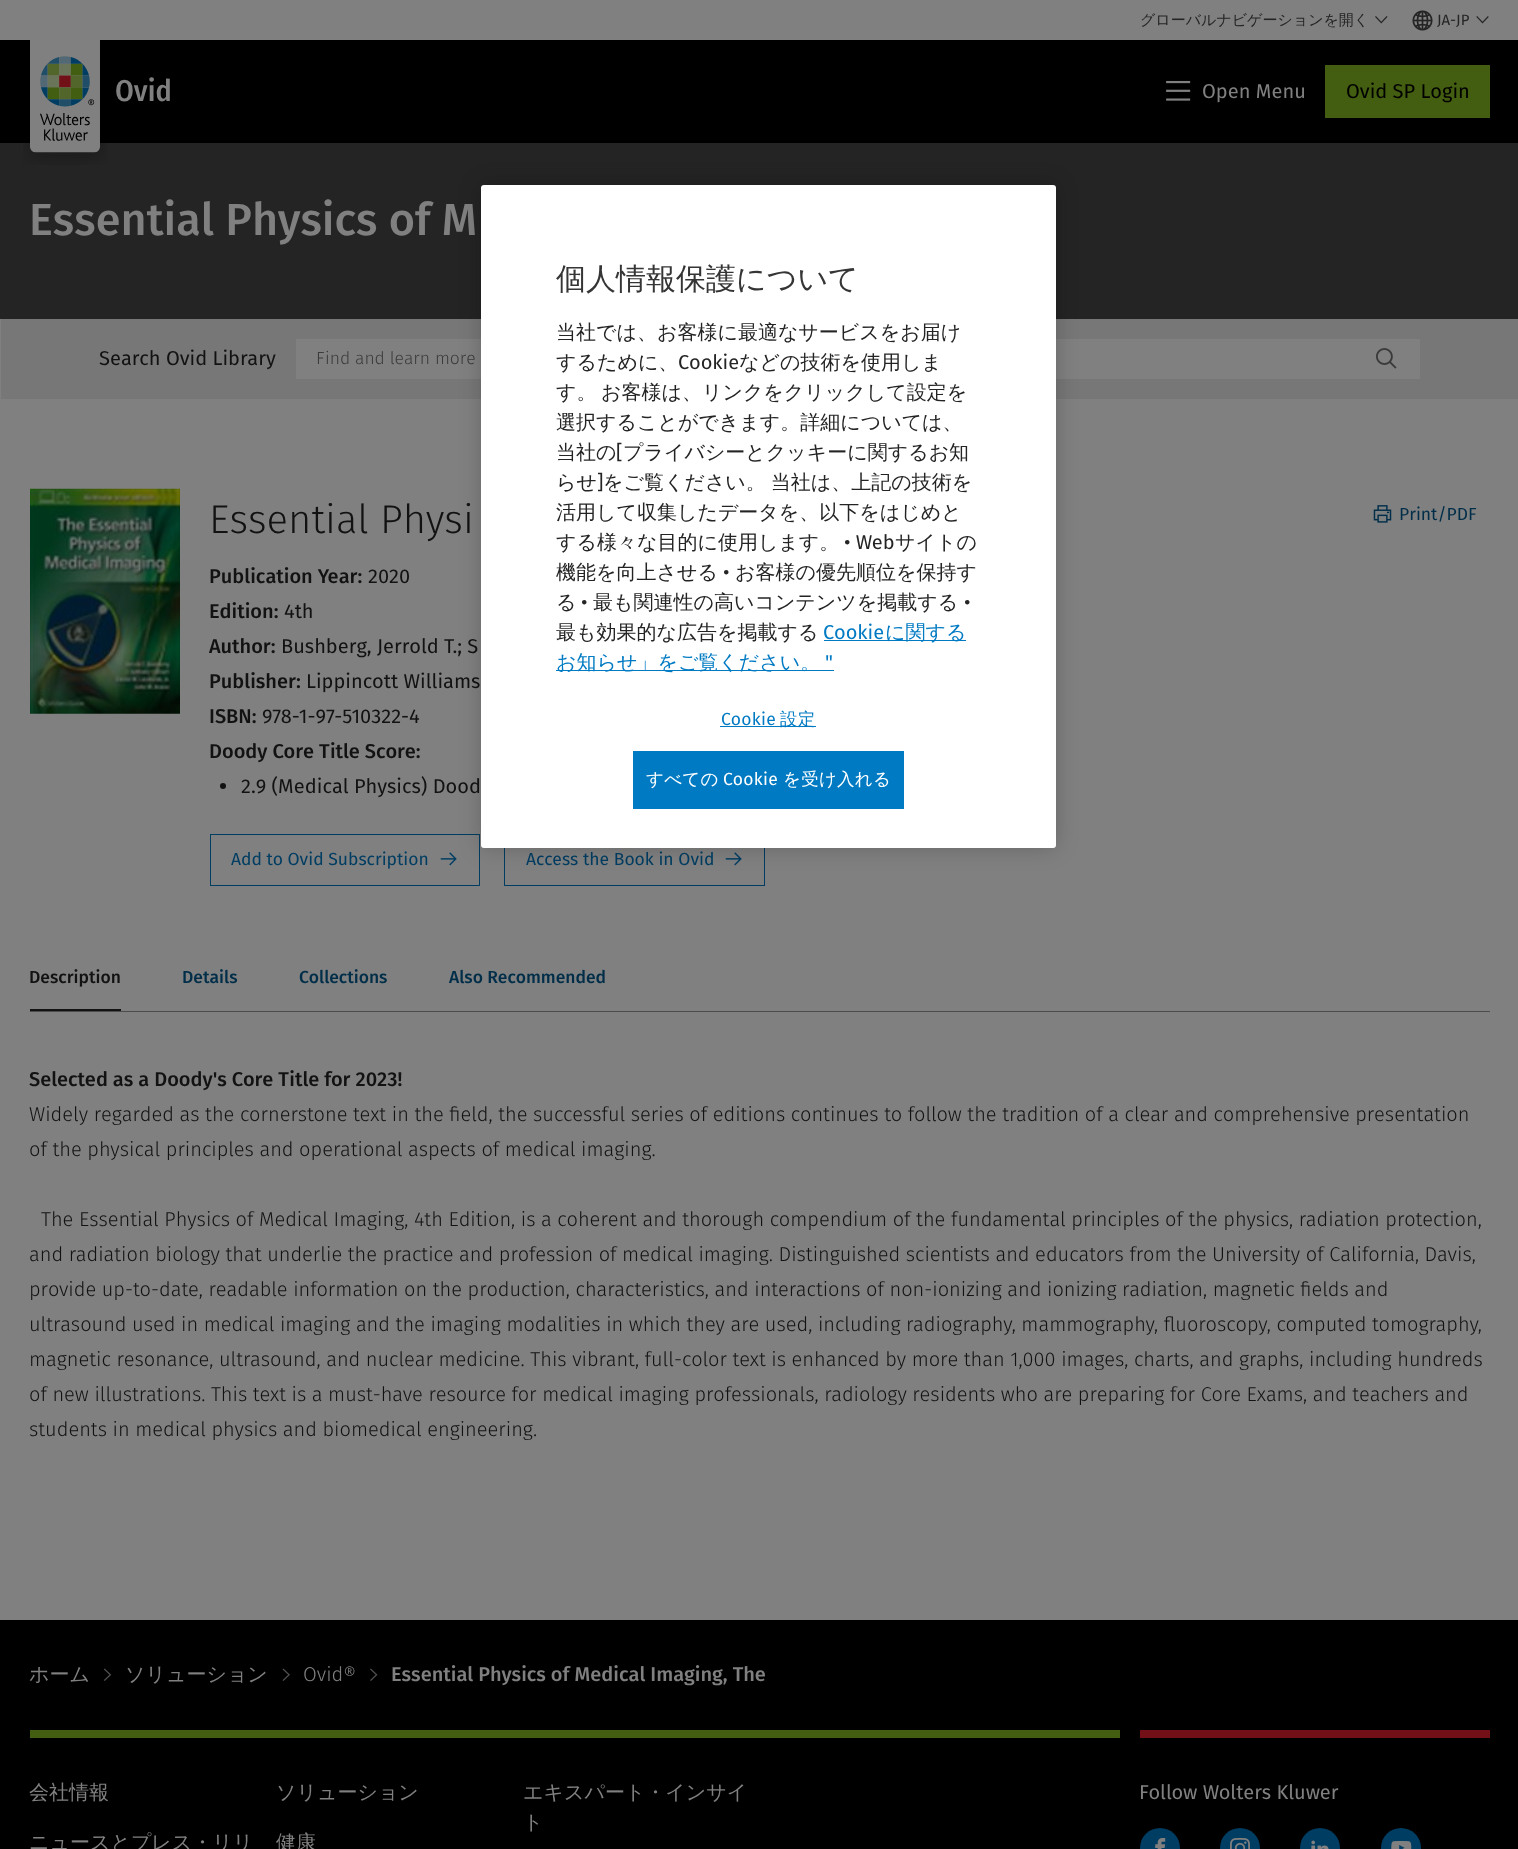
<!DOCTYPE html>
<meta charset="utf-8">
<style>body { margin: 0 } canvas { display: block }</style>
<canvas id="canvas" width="1518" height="1849"></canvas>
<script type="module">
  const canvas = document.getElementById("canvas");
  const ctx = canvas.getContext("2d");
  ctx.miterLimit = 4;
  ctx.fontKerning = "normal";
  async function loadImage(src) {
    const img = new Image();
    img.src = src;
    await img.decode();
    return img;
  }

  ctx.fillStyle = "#808080";
  ctx.fillRect(0, 0, 1518, 1849);
  ctx.font = "500 15px WenQuanYi Zen Hei";
  ctx.fillStyle = "#242424";
  ctx.fillText("グローバルナビゲーションを開く", 1140, 25);
  ctx.drawImage(await loadImage("img1.png"), 1375, 16, 13, 8);
  ctx.drawImage(await loadImage("img2.png"), 1412, 10, 21, 21);
  ctx.font = "15px Fira Sans";
  ctx.fillText("JA-JP", 1437, 25);
  ctx.drawImage(await loadImage("img3.png"), 1476, 16, 13, 8);
  ctx.fillStyle = "#000000";
  ctx.fillRect(0, 40, 1518, 103);
  ctx.fillStyle = "#242424";
  ctx.fillRect(0, 143, 1518, 176);
  ctx.drawImage(await loadImage("img4.png"), 23, 40, 84, 125);
  ctx.font = "500 30px Fira Sans Condensed";
  ctx.fillStyle = "#808080";
  ctx.fillText("Ovid", 115, 101);
  ctx.drawImage(await loadImage("img5.png"), 1166, 80, 25, 21);
  ctx.font = "20px Fira Sans";
  ctx.fillText("Open Menu", 1202, 98);
  ctx.fillStyle = "#435e10";
  ctx.fillRect(1325, 65, 165, 53);
  ctx.fillStyle = "#000000";
  ctx.fillText("Ovid SP Login", 1346, 98);
  ctx.font = "500 45px Fira Sans";
  ctx.fillStyle = "#808080";
  ctx.fillText("Essential Physics of M", 29, 235);
  ctx.fillStyle = "#777777";
  ctx.fillRect(1, 319, 1517, 80);
  ctx.font = "20px Fira Sans";
  ctx.fillStyle = "#121212";
  ctx.fillText("Search Ovid Library", 99, 365);
  ctx.fillStyle = "#808080";
  ctx.fillRect(296, 339, 1124, 40);
  ctx.font = "300 17.5px Fira Sans";
  ctx.fillStyle = "#3b3b3b";
  ctx.fillText("Find and learn more", 316, 364);
  ctx.drawImage(await loadImage("img6.png"), 1376, 348, 21, 21);
  ctx.drawImage(await loadImage("img7.png"), 30, 488, 150, 226);
  ctx.font = "300 40px Fira Sans";
  ctx.fillStyle = "#121212";
  ctx.fillText("Essential Physi", 209, 533);
  ctx.drawImage(await loadImage("img8.png"), 1373, 505, 19, 18);
  ctx.font = "17.5px Fira Sans";
  ctx.fillStyle = "#002e49";
  ctx.fillText("Print/PDF", 1399, 520);
  ctx.font = "500 20px Fira Sans";
  ctx.fillStyle = "#121212";
  ctx.fillText("Publication Year:", 209, 583);
  ctx.font = "20px Fira Sans";
  ctx.fillText("2020", 368, 583);
  ctx.font = "500 20px Fira Sans";
  ctx.fillText("Edition:", 209, 618);
  ctx.font = "20px Fira Sans";
  ctx.fillText("4th", 284, 618);
  ctx.font = "500 20px Fira Sans";
  ctx.fillText("Author:", 209, 653);
  ctx.font = "20px Fira Sans";
  ctx.fillText("Bushberg, Jerrold T.; S", 281, 653);
  ctx.font = "500 20px Fira Sans";
  ctx.fillText("Publisher:", 209, 688);
  ctx.font = "20px Fira Sans";
  ctx.fillText("Lippincott Williams", 306, 688);
  ctx.font = "500 20px Fira Sans";
  ctx.fillText("ISBN:", 209, 723);
  ctx.font = "20px Fira Sans";
  ctx.fillText("978-1-97-510322-4", 262, 723);
  ctx.font = "500 20px Fira Sans";
  ctx.fillText("Doody Core Title Score:", 209, 758);
  ctx.beginPath();
  ctx.arc(223, 786, 3, 0, Math.PI * 2);
  ctx.fill();
  ctx.font = "20px Fira Sans";
  ctx.fillText("2.9 (Medical Physics) Dood", 241, 793);
  ctx.strokeStyle = "#003d62";
  ctx.strokeRect(210.5, 834.5, 269, 51);
  ctx.font = "17.5px Fira Sans";
  ctx.fillStyle = "#003d62";
  ctx.fillText("Add to Ovid Subscription", 231, 865);
  ctx.drawImage(await loadImage("img9.png"), 440, 852, 17, 14);
  ctx.strokeRect(504.5, 834.5, 260, 51);
  ctx.fillText("Access the Book in Ovid", 526, 865);
  ctx.drawImage(await loadImage("img9.png"), 725, 852, 17, 14);
  ctx.fillStyle = "#121212";
  ctx.fillRect(30, 1009, 91, 2);
  ctx.font = "500 17.5px Fira Sans";
  ctx.fillText("Description", 29, 983);
  ctx.fillStyle = "#002e49";
  ctx.fillText("Details", 182, 983);
  ctx.fillText("Collections", 299, 983);
  ctx.fillText("Also Recommended", 449, 983);
  ctx.fillStyle = "#4c4c4c";
  ctx.fillRect(30, 1011, 1460, 1);
  ctx.font = "500 20px Fira Sans";
  ctx.fillStyle = "#121212";
  ctx.fillText("Selected as a Doody's Core Title for 2023!", 29, 1086);
  ctx.font = "300 20px Fira Sans";
  ctx.fillText("Widely regarded as the cornerstone text in the field, the successful series of editions continues to follow the tradition of a clear and comprehensive presentation", 29, 1121);
  ctx.fillText("of the physical principles and operational aspects of medical imaging.", 29, 1156);
  ctx.fillText("The Essential Physics of Medical Imaging, 4th Edition, is a coherent and thorough compendium of the fundamental principles of the physics, radiation protection,", 41, 1226);
  ctx.fillText("and radiation biology that underlie the practice and profession of medical imaging. Distinguished scientists and educators from the University of California, Davis,", 29, 1261);
  ctx.fillText("provide up-to-date, readable information on the production, characteristics, and interactions of non-ionizing and ionizing radiation, magnetic fields and", 29, 1296);
  ctx.fillText("ultrasound used in medical imaging and the imaging modalities in which they are used, including radiography, mammography, fluoroscopy, computed tomography,", 29, 1331);
  ctx.fillText("magnetic resonance, ultrasound, and nuclear medicine. This vibrant, full-color text is enhanced by more than 1,000 images, charts, and graphs, including hundreds", 29, 1366);
  ctx.fillText("of new illustrations. This text is a must-have resource for medical imaging professionals, radiology residents who are preparing for Core Exams, and teachers and", 29, 1401);
  ctx.fillText("students in medical physics and biomedical engineering.", 29, 1436);
  ctx.fillStyle = "#000000";
  ctx.fillRect(0, 1620, 1518, 229);
  ctx.font = "500 20px WenQuanYi Zen Hei";
  ctx.fillStyle = "#808080";
  ctx.fillText("ホーム", 29, 1681);
  ctx.drawImage(await loadImage("img10.png"), 103, 1668, 9, 13);
  ctx.fillText("ソリューション", 125, 1681);
  ctx.drawImage(await loadImage("img11.png"), 282, 1668, 8, 13);
  ctx.font = "300 20px Fira Sans";
  ctx.fillText("Ovid®", 303, 1681);
  ctx.drawImage(await loadImage("img12.png"), 370, 1668, 8, 13);
  ctx.font = "500 20px Fira Sans";
  ctx.fillText("Essential Physics of Medical Imaging, The", 391, 1681);
  ctx.fillStyle = "#435e10";
  ctx.fillRect(30, 1730, 1090, 8);
  ctx.fillStyle = "#731017";
  ctx.fillRect(1140, 1730, 350, 8);
  ctx.font = "500 20px WenQuanYi Zen Hei";
  ctx.fillStyle = "#808080";
  ctx.fillText("会社情報", 29, 1799);
  ctx.fillText("ニュースとプレス・リリ", 29, 1849);
  ctx.fillText("ソリューション", 276, 1799);
  ctx.fillText("健康", 276, 1849);
  ctx.fillText("エキスパート・インサイ", 523, 1799);
  ctx.fillText("ト", 523, 1829);
  ctx.font = "20px Fira Sans";
  ctx.fillText("Follow Wolters Kluwer", 1139, 1799);
  ctx.fillStyle = "#003d62";
  ctx.beginPath();
  ctx.arc(1160, 1848, 20, 0, Math.PI * 2);
  ctx.fill();
  ctx.drawImage(await loadImage("img13.png"), 1155, 1838, 11, 11);
  ctx.beginPath();
  ctx.arc(1240, 1848, 20, 0, Math.PI * 2);
  ctx.fill();
  ctx.drawImage(await loadImage("img14.png"), 1230, 1838, 20, 11);
  ctx.beginPath();
  ctx.arc(1320, 1848, 20, 0, Math.PI * 2);
  ctx.fill();
  ctx.drawImage(await loadImage("img15.png"), 1311, 1840, 18, 9);
  ctx.beginPath();
  ctx.arc(1401, 1848, 20, 0, Math.PI * 2);
  ctx.fill();
  ctx.drawImage(await loadImage("img16.png"), 1391, 1840, 21, 9);
  ctx.fillStyle = "rgba(0, 0, 0, 0.2)";
  ctx.filter = "blur(11px)";
  ctx.beginPath();
  ctx.roundRect(481, 185, 575, 663, 3);
  ctx.fill();
  ctx.filter = "none";
  ctx.fillStyle = "#ffffff";
  ctx.beginPath();
  ctx.roundRect(481, 185, 575, 663, 3);
  ctx.fill();
  ctx.font = "500 30px WenQuanYi Zen Hei";
  ctx.fillStyle = "#353535";
  ctx.fillText("個人情報保護について", 556, 289);
  ctx.font = "500 20px WenQuanYi Zen Hei";
  ctx.fillStyle = "#242424";
  ctx.fillText("当社では、お客様に最適なサービスをお届け", 556, 339);
  ctx.fillText("するために、", 556, 369);
  ctx.font = "20px Fira Sans";
  ctx.fillText("Cookie", 678, 369);
  ctx.font = "500 20px WenQuanYi Zen Hei";
  ctx.fillText("などの技術を使用しま", 739, 369);
  ctx.fillText("す。", 556, 399);
  ctx.fillText("お客様は、リンクをクリックして設定を", 601, 399);
  ctx.fillText("選択することができます。詳細については、", 556, 429);
  ctx.fillText("当社の", 556, 459);
  ctx.font = "20px Fira Sans";
  ctx.fillText("[", 616, 459);
  ctx.font = "500 20px WenQuanYi Zen Hei";
  ctx.fillText("プライバシーとクッキーに関するお知", 623, 459);
  ctx.fillText("らせ", 556, 489);
  ctx.font = "20px Fira Sans";
  ctx.fillText("]", 597, 489);
  ctx.wordSpacing = "-1px";
  ctx.font = "500 20px WenQuanYi Zen Hei";
  ctx.fillText("をご覧ください。 当社は、上記の技術を", 603, 489);
  ctx.wordSpacing = "0px";
  ctx.fillText("活用して収集したデータを、以下をはじめと", 556, 519);
  ctx.fillText("する様々な目的に使用します。", 556, 549);
  ctx.font = "20px Fira Sans";
  ctx.fillText("• Web", 844, 549);
  ctx.font = "500 20px WenQuanYi Zen Hei";
  ctx.fillText("サイトの", 895, 549);
  ctx.fillText("機能を向上させる", 556, 579);
  ctx.font = "20px Fira Sans";
  ctx.fillText("•", 723, 579);
  ctx.font = "500 20px WenQuanYi Zen Hei";
  ctx.fillText("お客様の優先順位を保持す", 735, 579);
  ctx.fillText("る", 556, 609);
  ctx.font = "20px Fira Sans";
  ctx.fillText("•", 581, 609);
  ctx.font = "500 20px WenQuanYi Zen Hei";
  ctx.fillText("最も関連性の高いコンテンツを掲載する", 593, 609);
  ctx.font = "20px Fira Sans";
  ctx.fillText("•", 964, 609);
  ctx.font = "500 20px WenQuanYi Zen Hei";
  ctx.fillText("最も効果的な広告を掲載する", 556, 639);
  ctx.font = "20px Fira Sans";
  ctx.fillStyle = "#007ac3";
  ctx.fillText("Cookie", 823, 639);
  ctx.fillRect(824, 640, 142, 1);
  ctx.font = "500 20px WenQuanYi Zen Hei";
  ctx.fillText("に関する", 885, 639);
  ctx.fillRect(556, 670, 278, 1);
  ctx.fillText("お知らせ」をご覧ください。", 556, 669);
  ctx.font = "20px Fira Sans";
  ctx.fillText("\"", 825, 669);
  ctx.letterSpacing = "0.25px";
  ctx.font = "17.5px Fira Sans";
  ctx.fillText("Cookie", 721, 725);
  ctx.fillRect(720, 726, 96, 1);
  ctx.font = "500 17.5px WenQuanYi Zen Hei";
  ctx.fillText("設定", 780, 725);
  ctx.fillRect(633, 751, 271, 58);
  ctx.fillStyle = "#ffffff";
  ctx.fillText("すべての", 646, 785);
  ctx.font = "17.5px Fira Sans";
  ctx.fillText("Cookie", 723, 785);
  ctx.font = "500 17.5px WenQuanYi Zen Hei";
  ctx.fillText("を受け入れる", 783, 785);
</script>
